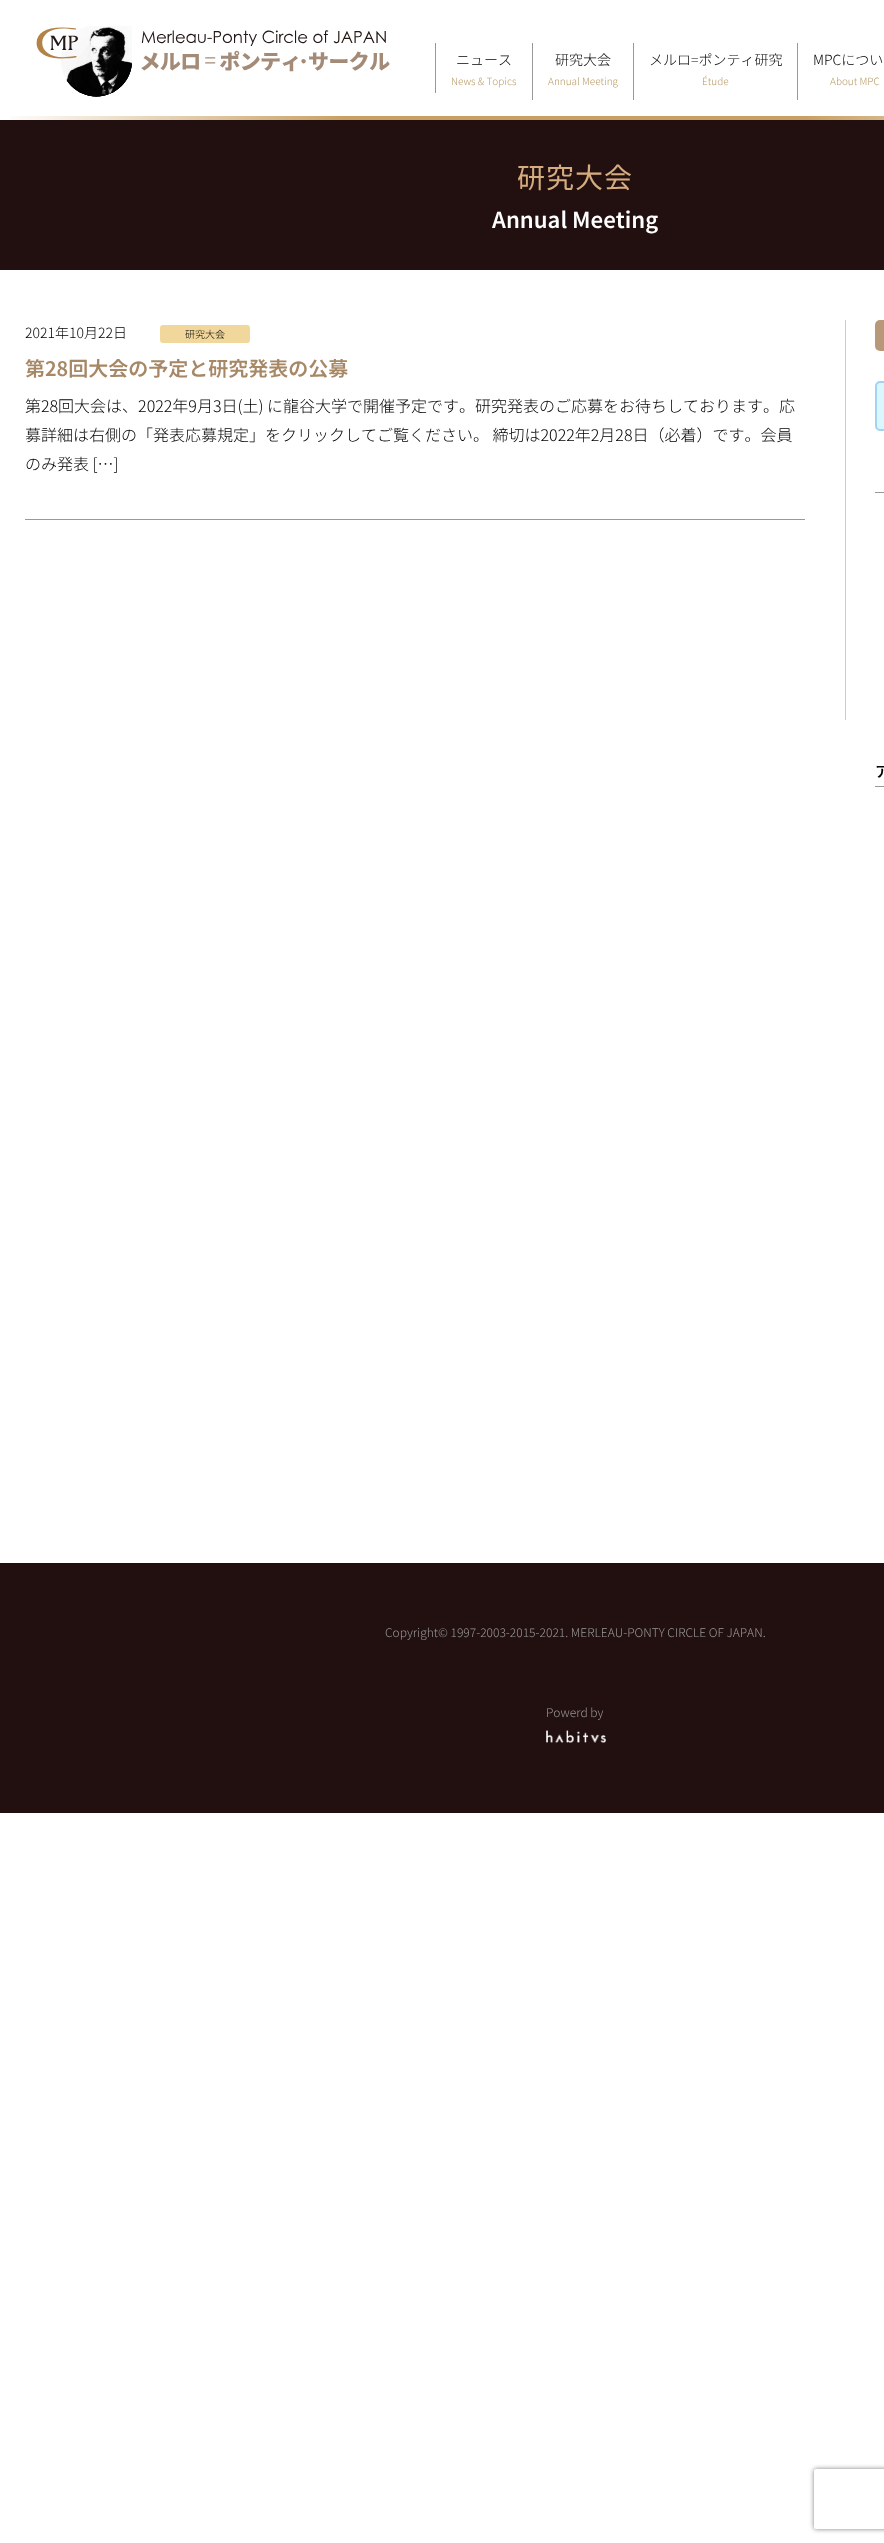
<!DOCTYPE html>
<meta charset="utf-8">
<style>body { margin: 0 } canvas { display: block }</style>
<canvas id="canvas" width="884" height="2543"></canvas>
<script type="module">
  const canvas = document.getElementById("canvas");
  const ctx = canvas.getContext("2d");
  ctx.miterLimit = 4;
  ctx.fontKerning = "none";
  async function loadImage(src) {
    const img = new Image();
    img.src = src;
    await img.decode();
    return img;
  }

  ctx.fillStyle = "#ffffff";
  ctx.fillRect(0, 0, 884, 2543);
  ctx.drawImage(await loadImage("img1.png"), 10, 116, 874, 4);
  ctx.drawImage(await loadImage("img2.png"), 36, 26, 354, 71);
  ctx.fillStyle = "#999999";
  ctx.fillRect(435, 43, 1, 50);
  ctx.fillRect(532, 43, 1, 57);
  ctx.font = "300 14px Noto Sans JP";
  ctx.fillStyle = "#000000";
  ctx.fillText("ニュース", 456, 65);
  ctx.font = "300 10px Noto Sans JP";
  ctx.fillStyle = "#b89a66";
  ctx.fillText("News & Topics", 451, 85);
  ctx.fillStyle = "#999999";
  ctx.fillRect(633, 43, 1, 57);
  ctx.font = "300 14px Noto Sans JP";
  ctx.fillStyle = "#000000";
  ctx.fillText("研究大会", 555, 65);
  ctx.font = "300 10px Noto Sans JP";
  ctx.fillStyle = "#b89a66";
  ctx.fillText("Annual Meeting", 548, 85);
  ctx.fillStyle = "#999999";
  ctx.fillRect(797, 43, 1, 57);
  ctx.font = "300 14px Noto Sans JP";
  ctx.fillStyle = "#000000";
  ctx.fillText("メルロ=ポンティ研究", 649, 65);
  ctx.font = "300 10px Noto Sans JP";
  ctx.fillStyle = "#b89a66";
  ctx.fillText("Étude", 702, 85);
  ctx.font = "300 14px Noto Sans JP";
  ctx.fillStyle = "#000000";
  ctx.fillText("MPCについ", 813, 65);
  ctx.font = "300 10px Noto Sans JP";
  ctx.fillStyle = "#b89a66";
  ctx.fillText("About MPC", 830, 85);
  ctx.fillStyle = "#220f0f";
  ctx.fillRect(0, 120, 884, 150);
  ctx.letterSpacing = "1px";
  ctx.font = "28px Noto Sans JP";
  ctx.fillStyle = "#d5ac7f";
  ctx.fillText("研究大会", 517, 188);
  ctx.letterSpacing = "0px";
  ctx.font = "600 22px Noto Sans JP";
  ctx.fillStyle = "#ffffff";
  ctx.fillText("Annual Meeting", 492, 228);
  ctx.fillStyle = "#cccccc";
  ctx.fillRect(845, 320, 1, 400);
  ctx.fillStyle = "#999999";
  ctx.fillRect(25, 519, 780, 1);
  ctx.font = "300 14px Noto Sans JP";
  ctx.fillStyle = "#000000";
  ctx.fillText("2021年10月22日", 25, 338);
  ctx.fillStyle = "#f1d79c";
  ctx.beginPath();
  ctx.roundRect(160, 325, 90, 18, 3);
  ctx.fill();
  ctx.font = "300 10px Noto Sans JP";
  ctx.fillStyle = "#000000";
  ctx.fillText("研究大会", 185, 338);
  ctx.font = "600 20px Noto Sans JP";
  ctx.fillStyle = "#a78866";
  ctx.fillText("第28回大会の予定と研究発表の公募", 25, 376);
  ctx.font = "300 16px Noto Sans JP";
  ctx.fillStyle = "#000000";
  ctx.fillText("第28回大会は、2022年9月3日(土) に龍谷大学で開催予定です。研究発表のご応募をお待ちしております", 25, 412);
  ctx.fillText("。応", 763, 412);
  ctx.fillText("募詳細は右側の「発表応募規定」をクリックしてご覧ください。 締切は2022年2月28日（必着）です。会員", 25, 441);
  ctx.fillText("のみ発表 […]", 25, 470);
  ctx.fillStyle = "#b79979";
  ctx.beginPath();
  ctx.roundRect(875, 320, 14, 31, 5);
  ctx.fill();
  ctx.fillStyle = "#d8f7ff";
  ctx.beginPath();
  ctx.roundRect(876, 382, 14, 48, 4);
  ctx.fill();
  ctx.strokeStyle = "#a4d2f2";
  ctx.lineWidth = 2;
  ctx.stroke();
  ctx.fillStyle = "#999999";
  ctx.fillRect(875, 492, 9, 1);
  ctx.fillRect(875, 786, 9, 1);
  ctx.font = "600 15px Noto Sans JP";
  ctx.fillStyle = "#000000";
  ctx.fillText("ア", 875, 777);
  ctx.fillStyle = "#220f0f";
  ctx.fillRect(0, 1563, 884, 250);
  ctx.font = "300 12px Noto Sans JP";
  ctx.fillStyle = "#999999";
  ctx.fillText("Copyright© 1997-2003-2015-2021. MERLEAU-PONTY CIRCLE OF JAPAN.", 385, 1637);
  ctx.fillText("Powerd by", 546, 1717);
  ctx.drawImage(await loadImage("img3.png"), 546, 1730, 60, 13);
  ctx.save();
  ctx.beginPath();
  ctx.moveTo(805, 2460);
  ctx.lineTo(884, 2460);
  ctx.lineTo(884, 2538);
  ctx.lineTo(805, 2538);
  ctx.closePath();
  ctx.moveTo(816, 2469);
  ctx.lineTo(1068, 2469);
  ctx.bezierCurveTo(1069, 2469, 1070, 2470, 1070, 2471);
  ctx.lineTo(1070, 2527);
  ctx.bezierCurveTo(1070, 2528, 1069, 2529, 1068, 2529);
  ctx.lineTo(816, 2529);
  ctx.bezierCurveTo(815, 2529, 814, 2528, 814, 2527);
  ctx.lineTo(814, 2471);
  ctx.bezierCurveTo(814, 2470, 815, 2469, 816, 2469);
  ctx.closePath();
  ctx.clip("evenodd");
  ctx.fillStyle = "#808080";
  ctx.filter = "blur(2.5px)";
  ctx.beginPath();
  ctx.roundRect(814, 2469, 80, 60, 2);
  ctx.fill();
  ctx.filter = "none";
  ctx.restore();
</script>
